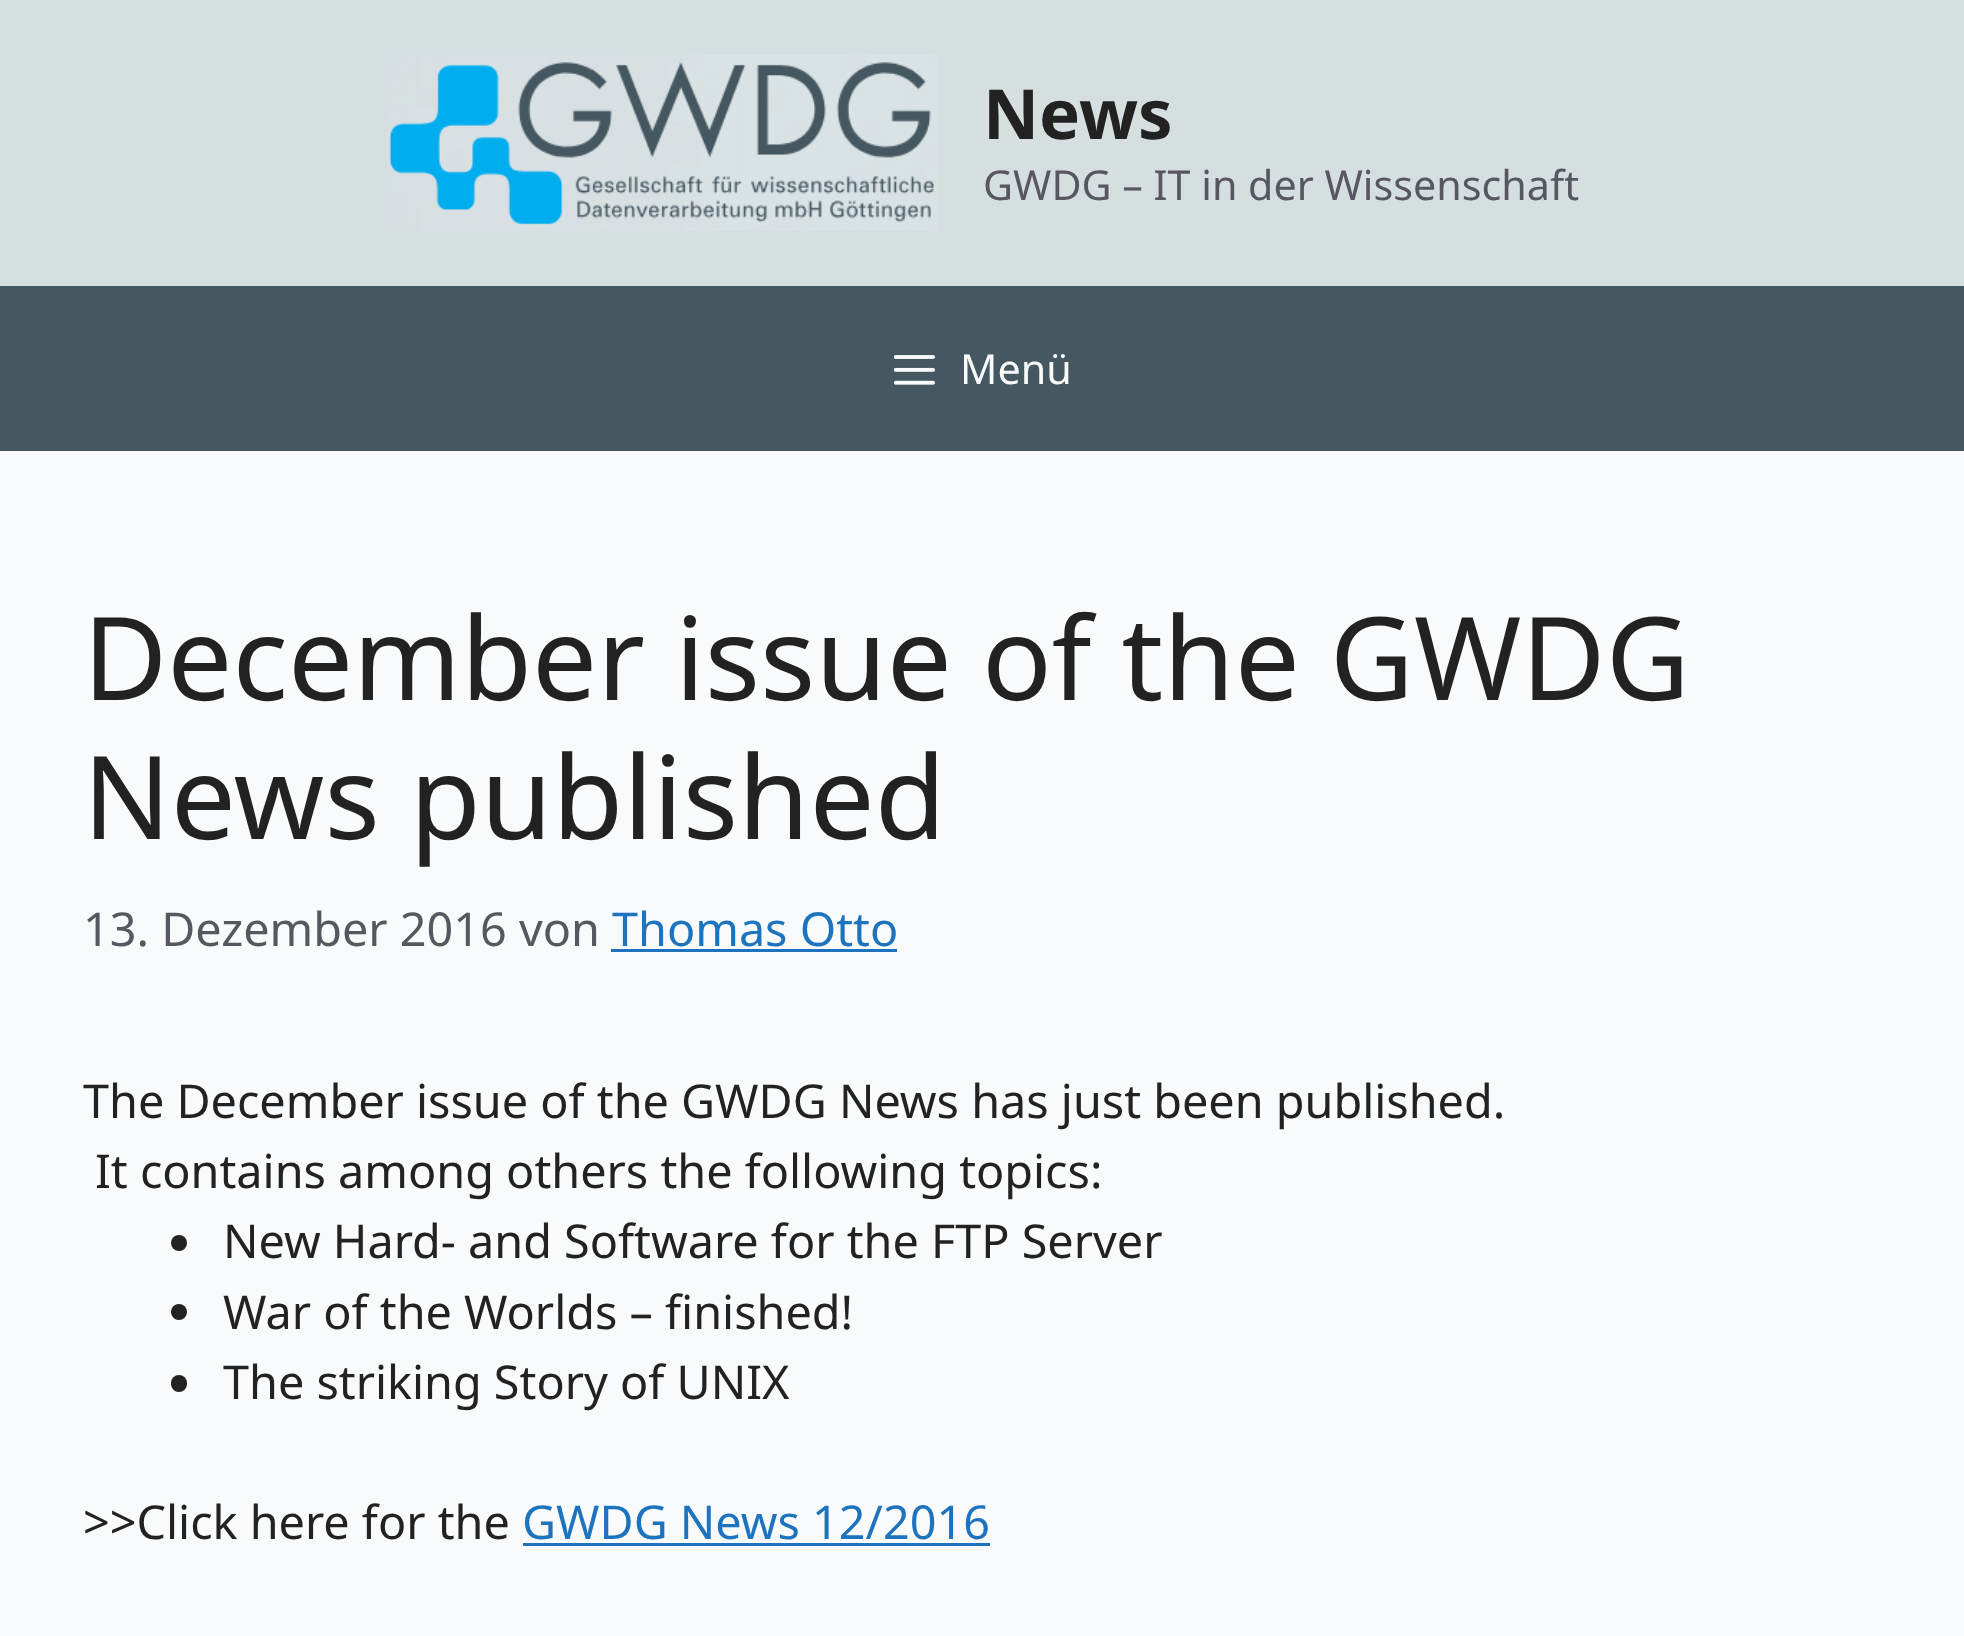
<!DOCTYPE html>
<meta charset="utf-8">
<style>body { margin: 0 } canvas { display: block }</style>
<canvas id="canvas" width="1964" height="1636"></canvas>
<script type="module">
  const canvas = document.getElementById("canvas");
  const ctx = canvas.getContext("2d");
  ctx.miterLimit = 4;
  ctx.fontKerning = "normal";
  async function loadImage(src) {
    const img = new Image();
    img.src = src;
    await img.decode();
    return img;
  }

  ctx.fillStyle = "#f9fafb";
  ctx.fillRect(0, 0, 1964, 1636);
  ctx.fillStyle = "#d6dfe0";
  ctx.fillRect(0, 0, 1964, 286);
  ctx.drawImage(await loadImage("img1.png"), 388, 55, 550, 176);
  ctx.font = "bold 69px Noto Sans";
  ctx.fillStyle = "#222222";
  ctx.fillText("News", 983, 139);
  ctx.font = "41.25px Noto Sans";
  ctx.fillStyle = "#575760";
  ctx.fillText("GWDG – IT in der Wissenschaft", 983, 200);
  ctx.fillStyle = "#455761";
  ctx.fillRect(0, 286, 1964, 165);
  ctx.drawImage(await loadImage("img2.png"), 894, 355, 41, 30);
  ctx.fillStyle = "#f9fafb";
  ctx.fillText("Menü", 960, 384);
  ctx.font = "115.5px Noto Sans";
  ctx.fillStyle = "#222222";
  ctx.fillText("December issue of the GWDG", 83, 700);
  ctx.fillText("News published", 83, 839);
  ctx.font = "46.75px Noto Sans";
  ctx.fillStyle = "#575760";
  ctx.fillText("13. Dezember 2016 von", 83, 946);
  ctx.fillStyle = "#1e73be";
  ctx.fillText("Thomas Otto", 612, 946);
  ctx.fillRect(611, 949, 286, 3);
  ctx.fillStyle = "#222222";
  ctx.fillText("The December issue of the GWDG News has just been published.", 83, 1118);
  ctx.fillText("It contains among others the following topics:", 95, 1188);
  ctx.beginPath();
  ctx.arc(179, 1243, 8, 0, Math.PI * 2);
  ctx.fill();
  ctx.fillText("New Hard- and Software for the FTP Server", 223, 1258);
  ctx.beginPath();
  ctx.arc(179, 1312, 8, 0, Math.PI * 2);
  ctx.fill();
  ctx.fillText("War of the Worlds – finished!", 223, 1329);
  ctx.beginPath();
  ctx.roundRect(171, 1375, 16, 17, 8);
  ctx.fill();
  ctx.fillText("The striking Story of UNIX", 223, 1399);
  ctx.fillText(">>Click here for the", 83, 1539);
  ctx.fillStyle = "#1e73be";
  ctx.fillText("GWDG News 12/2016", 522, 1539);
  ctx.fillRect(523, 1543, 467, 3);
</script>
